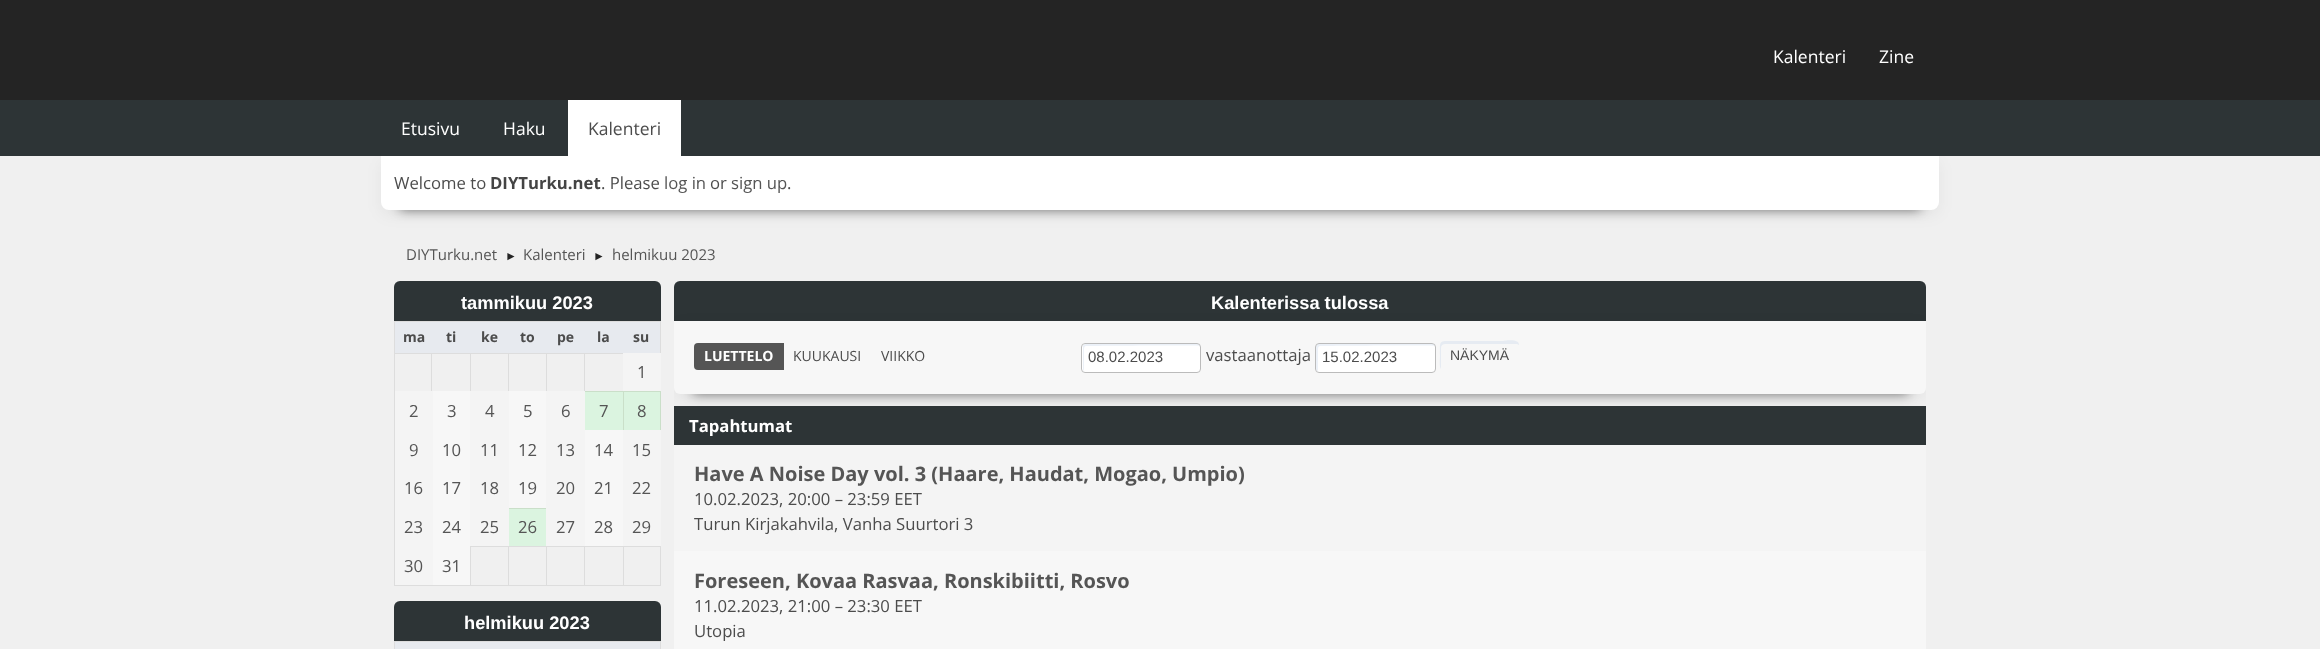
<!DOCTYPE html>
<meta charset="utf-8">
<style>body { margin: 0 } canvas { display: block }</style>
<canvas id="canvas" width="2320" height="649"></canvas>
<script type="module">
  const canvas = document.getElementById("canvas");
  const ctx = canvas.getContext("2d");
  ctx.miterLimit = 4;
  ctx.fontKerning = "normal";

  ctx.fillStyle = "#f0f0f0";
  ctx.fillRect(0, 0, 2320, 649);
  ctx.fillStyle = "#242424";
  ctx.fillRect(0, 0, 2320, 100);
  ctx.font = "17.5px Open Sans";
  ctx.fillStyle = "#ffffff";
  ctx.fillText("Kalenteri", 1773, 63);
  ctx.fillText("Zine", 1879, 63);
  ctx.fillStyle = "rgba(0, 0, 0, 0.05)";
  ctx.filter = "blur(7.5px)";
  ctx.beginPath();
  ctx.roundRect(381, 161, 1558, 54, 8);
  ctx.fill();
  ctx.filter = "none";
  ctx.fillStyle = "#2d3436";
  ctx.fillRect(0, 100, 2320, 56);
  ctx.fillStyle = "#ffffff";
  ctx.fillText("Etusivu", 401, 135);
  ctx.fillText("Haku", 503, 135);
  ctx.fillRect(568, 100, 113, 56);
  ctx.fillStyle = "#4c4c4c";
  ctx.fillText("Kalenteri", 588, 135);
  ctx.fillStyle = "rgba(1, 0, 0, 0.5)";
  ctx.filter = "blur(6px)";
  ctx.beginPath();
  ctx.rect(400, 194, 1520, 16);
  ctx.fill();
  ctx.filter = "none";
  ctx.fillStyle = "#ffffff";
  ctx.beginPath();
  ctx.roundRect(381, 156, 1558, 54, [0, 0, 8, 8]);
  ctx.fill();
  ctx.font = "16.7px Open Sans";
  ctx.fillStyle = "#4c4c4c";
  ctx.fillText("Welcome to", 394, 189);
  ctx.font = "bold 16.7px Open Sans";
  ctx.fillStyle = "#444444";
  ctx.fillText("DIYTurku.net", 490, 189);
  ctx.font = "16.7px Open Sans";
  ctx.fillStyle = "#4c4c4c";
  ctx.fillText(". Please", 601, 189);
  ctx.fillStyle = "#555555";
  ctx.fillText("log in", 664, 189);
  ctx.fillStyle = "#4c4c4c";
  ctx.fillText("or", 710, 189);
  ctx.fillStyle = "#555555";
  ctx.fillText("sign up", 731, 189);
  ctx.fillStyle = "#4c4c4c";
  ctx.fillText(".", 787, 189);
  ctx.font = "15px Open Sans";
  ctx.fillStyle = "#555555";
  ctx.fillText("DIYTurku.net", 406, 260);
  ctx.font = "12px Liberation Sans";
  ctx.fillStyle = "#242424";
  ctx.fillText("►", 505, 260);
  ctx.font = "15px Open Sans";
  ctx.fillStyle = "#555555";
  ctx.fillText("Kalenteri", 523, 260);
  ctx.font = "12px Liberation Sans";
  ctx.fillStyle = "#242424";
  ctx.fillText("►", 593, 260);
  ctx.font = "15px Open Sans";
  ctx.fillStyle = "#555555";
  ctx.fillText("helmikuu 2023", 612, 260);
  ctx.fillStyle = "#2d3436";
  ctx.beginPath();
  ctx.roundRect(394, 281, 267, 40, [6, 6, 0, 0]);
  ctx.fill();
  ctx.font = "bold 18.25px Liberation Sans";
  ctx.fillStyle = "#ffffff";
  ctx.fillText("tammikuu 2023", 461, 309);
  ctx.fillStyle = "#dbf4e0";
  ctx.fillRect(509, 509, 37, 37);
  ctx.fillRect(624, 392, 36, 38);
  ctx.fillRect(585, 392, 38, 38);
  ctx.fillStyle = "#dddddd";
  ctx.fillRect(394, 321, 267, 1);
  ctx.fillRect(660, 321, 1, 265);
  ctx.fillStyle = "#cadfc9";
  ctx.fillRect(660, 391, 1, 39);
  ctx.fillStyle = "#dddddd";
  ctx.fillRect(394, 585, 267, 1);
  ctx.fillRect(394, 321, 1, 265);
  ctx.fillStyle = "#e7eaef";
  ctx.fillRect(395, 322, 265, 31);
  ctx.font = "bold 14px Open Sans";
  ctx.fillStyle = "#4c4c4c";
  ctx.fillText("ma", 403, 342);
  ctx.fillText("ti", 446, 342);
  ctx.fillText("ke", 481, 342);
  ctx.fillText("to", 520, 342);
  ctx.fillText("pe", 557, 342);
  ctx.fillText("la", 597, 342);
  ctx.fillText("su", 633, 342);
  ctx.fillStyle = "#dddddd";
  ctx.fillRect(394, 353, 229, 1);
  ctx.fillRect(431, 353, 1, 40);
  ctx.fillRect(470, 353, 1, 40);
  ctx.fillRect(508, 353, 1, 40);
  ctx.fillRect(546, 353, 1, 40);
  ctx.fillRect(584, 353, 1, 40);
  ctx.fillStyle = "#cadfc9";
  ctx.fillRect(623, 391, 1, 39);
  ctx.fillRect(585, 391, 76, 1);
  ctx.fillStyle = "#f4f4f4";
  ctx.fillRect(623, 353, 38, 38);
  ctx.font = "16.7px Open Sans";
  ctx.fillStyle = "#555555";
  ctx.fillText("1", 637, 378);
  ctx.fillStyle = "#f4f4f4";
  ctx.fillRect(395, 391, 38, 194);
  ctx.fillStyle = "#555555";
  ctx.fillText("2", 409, 417);
  ctx.fillStyle = "#f7f7f7";
  ctx.fillRect(433, 391, 37, 194);
  ctx.fillStyle = "#555555";
  ctx.fillText("3", 447, 417);
  ctx.fillStyle = "#f4f4f4";
  ctx.fillRect(470, 391, 39, 155);
  ctx.fillStyle = "#555555";
  ctx.fillText("4", 485, 417);
  ctx.fillStyle = "#f7f7f7";
  ctx.fillRect(509, 391, 37, 117);
  ctx.fillStyle = "#555555";
  ctx.fillText("5", 523, 417);
  ctx.fillStyle = "#f4f4f4";
  ctx.fillRect(546, 391, 39, 155);
  ctx.fillStyle = "#555555";
  ctx.fillText("6", 561, 417);
  ctx.fillText("7", 599, 417);
  ctx.fillText("8", 637, 417);
  ctx.fillText("9", 409, 456);
  ctx.fillText("10", 442, 456);
  ctx.fillText("11", 480, 456);
  ctx.fillText("12", 518, 456);
  ctx.fillText("13", 556, 456);
  ctx.fillStyle = "#f7f7f7";
  ctx.fillRect(585, 430, 38, 116);
  ctx.fillStyle = "#555555";
  ctx.fillText("14", 594, 456);
  ctx.fillStyle = "#f4f4f4";
  ctx.fillRect(623, 430, 38, 116);
  ctx.fillStyle = "#555555";
  ctx.fillText("15", 632, 456);
  ctx.fillText("16", 404, 494);
  ctx.fillText("17", 442, 494);
  ctx.fillText("18", 480, 494);
  ctx.fillStyle = "#cadfc9";
  ctx.fillRect(509, 508, 37, 1);
  ctx.fillStyle = "#555555";
  ctx.fillText("19", 518, 494);
  ctx.fillText("20", 556, 494);
  ctx.fillText("21", 594, 494);
  ctx.fillText("22", 632, 494);
  ctx.fillText("23", 404, 533);
  ctx.fillText("24", 442, 533);
  ctx.fillText("25", 480, 533);
  ctx.fillText("26", 518, 533);
  ctx.fillText("27", 556, 533);
  ctx.fillText("28", 594, 533);
  ctx.fillText("29", 632, 533);
  ctx.fillText("30", 404, 572);
  ctx.fillText("31", 442, 572);
  ctx.fillStyle = "#dddddd";
  ctx.fillRect(623, 546, 38, 1);
  ctx.fillRect(623, 546, 1, 40);
  ctx.fillRect(584, 546, 40, 1);
  ctx.fillRect(584, 546, 1, 40);
  ctx.fillRect(546, 546, 39, 1);
  ctx.fillRect(546, 546, 1, 40);
  ctx.fillRect(508, 546, 40, 1);
  ctx.fillRect(508, 546, 1, 40);
  ctx.fillRect(470, 546, 39, 1);
  ctx.fillRect(470, 546, 1, 40);
  ctx.fillStyle = "#2d3436";
  ctx.beginPath();
  ctx.roundRect(394, 601, 267, 40, [6, 6, 0, 0]);
  ctx.fill();
  ctx.font = "bold 18.25px Liberation Sans";
  ctx.fillStyle = "#ffffff";
  ctx.fillText("helmikuu 2023", 464, 629);
  ctx.fillStyle = "#dddddd";
  ctx.fillRect(394, 641, 267, 1);
  ctx.fillStyle = "#e7eaef";
  ctx.fillRect(395, 642, 266, 7);
  ctx.fillStyle = "#dddddd";
  ctx.fillRect(660, 641, 1, 8);
  ctx.fillRect(394, 641, 1, 8);
  ctx.fillStyle = "#2d3436";
  ctx.beginPath();
  ctx.roundRect(674, 281, 1252, 40, [6, 6, 0, 0]);
  ctx.fill();
  ctx.fillStyle = "#ffffff";
  ctx.fillText("Kalenterissa tulossa", 1211, 309);
  ctx.fillStyle = "rgba(1, 0, 0, 0.5)";
  ctx.filter = "blur(6px)";
  ctx.beginPath();
  ctx.rect(693, 359, 1215, 35);
  ctx.fill();
  ctx.filter = "none";
  ctx.save();
  ctx.beginPath();
  ctx.rect(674, 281, 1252, 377);
  ctx.clip();
  ctx.fillStyle = "rgba(0, 0, 0, 0.05)";
  ctx.filter = "blur(7.5px)";
  ctx.beginPath();
  ctx.roundRect(674, 326, 1252, 73, 6);
  ctx.fill();
  ctx.filter = "none";
  ctx.restore();
  ctx.fillStyle = "#f7f7f7";
  ctx.beginPath();
  ctx.roundRect(674, 321, 1252, 73, [0, 0, 6, 6]);
  ctx.fill();
  ctx.fillStyle = "#555555";
  ctx.beginPath();
  ctx.roundRect(694, 343, 90, 27, [4, 0, 0, 4]);
  ctx.fill();
  ctx.font = "bold 14px Open Sans";
  ctx.fillStyle = "#ffffff";
  ctx.fillText("LUETTELO", 704, 361);
  ctx.font = "14px Open Sans";
  ctx.fillStyle = "#4c4c4c";
  ctx.fillText("KUUKAUSI", 793, 361);
  ctx.fillText("VIIKKO", 881, 361);
  ctx.fillStyle = "#ffffff";
  ctx.beginPath();
  ctx.roundRect(1081, 343, 120, 30, 4);
  ctx.fill();
  ctx.fillStyle = "#ecf1f8";
  ctx.beginPath();
  ctx.moveTo(1086, 346);
  ctx.bezierCurveTo(1097, 346, 1198, 345, 1200, 346);
  ctx.bezierCurveTo(1200, 345, 1199, 344, 1198, 344);
  ctx.lineTo(1086, 344);
  ctx.bezierCurveTo(1084, 344, 1083, 345, 1083, 346);
  ctx.lineTo(1083, 368);
  ctx.bezierCurveTo(1083, 369, 1083, 370, 1084, 371);
  ctx.lineTo(1084, 349);
  ctx.bezierCurveTo(1084, 347, 1085, 346, 1086, 346);
  ctx.closePath();
  ctx.fill();
  ctx.beginPath();
  ctx.roundRect(1081.5, 343.5, 119, 29, 3.5);
  ctx.strokeStyle = "#bbbbbb";
  ctx.stroke();
  ctx.font = "15px Liberation Sans";
  ctx.fillStyle = "#4c4c4c";
  ctx.fillText("08.02.2023", 1088, 362);
  ctx.font = "16.7px Open Sans";
  ctx.fillText("vastaanottaja", 1206, 361);
  ctx.fillStyle = "#ffffff";
  ctx.beginPath();
  ctx.roundRect(1315, 343, 121, 30, 4);
  ctx.fill();
  ctx.fillStyle = "#ecf1f8";
  ctx.beginPath();
  ctx.moveTo(1320, 346);
  ctx.bezierCurveTo(1331, 346, 1433, 345, 1435, 346);
  ctx.bezierCurveTo(1435, 345, 1434, 344, 1432, 344);
  ctx.lineTo(1318, 344);
  ctx.bezierCurveTo(1317, 344, 1316, 345, 1316, 346);
  ctx.lineTo(1316, 368);
  ctx.bezierCurveTo(1316, 370, 1317, 371, 1318, 371);
  ctx.lineTo(1318, 349);
  ctx.bezierCurveTo(1318, 347, 1319, 346, 1320, 346);
  ctx.closePath();
  ctx.fill();
  ctx.beginPath();
  ctx.roundRect(1315.5, 343.5, 120, 29, 3.5);
  ctx.stroke();
  ctx.font = "15px Liberation Sans";
  ctx.fillStyle = "#4c4c4c";
  ctx.fillText("15.02.2023", 1322, 362);
  ctx.fillStyle = "#e6ebf2";
  ctx.beginPath();
  ctx.moveTo(1445, 344);
  ctx.lineTo(1517, 344);
  ctx.lineTo(1519, 345);
  ctx.bezierCurveTo(1519, 338, 1505, 341, 1503, 341);
  ctx.lineTo(1456, 341);
  ctx.bezierCurveTo(1438, 341, 1440, 339, 1440, 356);
  ctx.bezierCurveTo(1440, 359, 1439, 366, 1441, 369);
  ctx.lineTo(1441, 348);
  ctx.bezierCurveTo(1441, 345, 1443, 344, 1445, 344);
  ctx.closePath();
  ctx.fill();
  ctx.font = "14px Liberation Sans";
  ctx.fillStyle = "#4c4c4c";
  ctx.fillText("NÄKYMÄ", 1450, 360);
  ctx.fillStyle = "#2d3436";
  ctx.fillRect(674, 406, 1252, 39);
  ctx.font = "bold 16.7px Open Sans";
  ctx.fillStyle = "#ffffff";
  ctx.fillText("Tapahtumat", 689, 432);
  ctx.fillStyle = "#f4f4f4";
  ctx.fillRect(674, 445, 1252, 106);
  ctx.font = "bold 20px Open Sans";
  ctx.fillStyle = "#555555";
  ctx.fillText("Have A Noise Day vol. 3 (Haare, Haudat, Mogao, Umpio)", 694, 481);
  ctx.font = "16.7px Open Sans";
  ctx.fillStyle = "#4c4c4c";
  ctx.fillText("10.02.2023, 20:00 – 23:59 EET", 694, 505);
  ctx.fillText("Turun Kirjakahvila, Vanha Suurtori 3", 694, 530);
  ctx.fillStyle = "#f7f7f7";
  ctx.fillRect(674, 551, 1252, 98);
  ctx.font = "bold 20px Open Sans";
  ctx.fillStyle = "#555555";
  ctx.fillText("Foreseen, Kovaa Rasvaa, Ronskibiitti, Rosvo", 694, 588);
  ctx.font = "16.7px Open Sans";
  ctx.fillStyle = "#4c4c4c";
  ctx.fillText("11.02.2023, 21:00 – 23:30 EET", 694, 612);
  ctx.fillText("Utopia", 694, 637);
</script>
